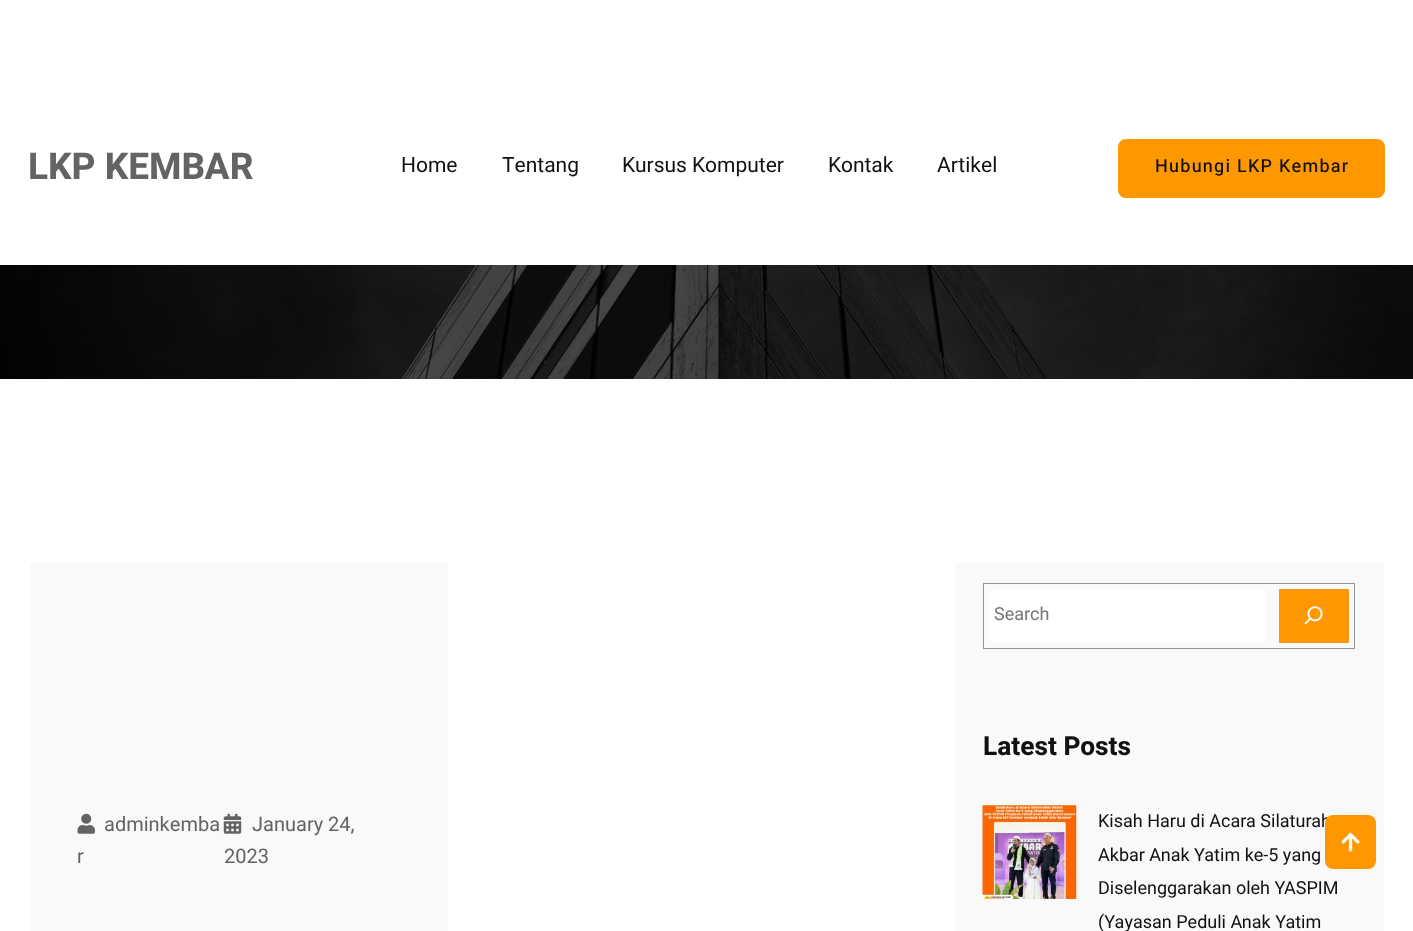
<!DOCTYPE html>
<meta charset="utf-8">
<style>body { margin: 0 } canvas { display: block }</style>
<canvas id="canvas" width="1413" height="931"></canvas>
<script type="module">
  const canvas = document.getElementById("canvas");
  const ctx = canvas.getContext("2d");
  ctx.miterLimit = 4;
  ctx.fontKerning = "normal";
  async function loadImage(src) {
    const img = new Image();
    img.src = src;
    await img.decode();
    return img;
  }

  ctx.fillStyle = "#ffffff";
  ctx.fillRect(0, 0, 1413, 931);
  ctx.font = "bold 37px Heebo";
  ctx.fillStyle = "#636363";
  ctx.fillText("LKP KEMBAR", 28, 179);
  ctx.font = "21px Heebo";
  ctx.fillStyle = "#111111";
  ctx.fillText("Home", 401, 172);
  ctx.fillText("Tentang", 502, 172);
  ctx.fillText("Kursus Komputer", 622, 172);
  ctx.fillText("Kontak", 828, 172);
  ctx.fillText("Artikel", 937, 172);
  ctx.fillStyle = "#ff9800";
  ctx.beginPath();
  ctx.roundRect(1118, 139, 267, 59, 8);
  ctx.fill();
  ctx.letterSpacing = "1.25px";
  ctx.font = "500 18px Heebo";
  ctx.fillStyle = "#111111";
  ctx.fillText("Hubungi LKP Kembar", 1155, 172);
  ctx.drawImage(await loadImage("img1.png"), 0, 265, 1413, 114);
  ctx.fillStyle = "#f9f9f9";
  ctx.fillRect(30, 563, 418, 368);
  ctx.drawImage(await loadImage("img2.png"), 77, 813, 18, 21);
  ctx.letterSpacing = "0px";
  ctx.font = "20px Heebo";
  ctx.fillStyle = "#636363";
  ctx.fillText("adminkemba", 104, 831);
  ctx.fillText("r", 77, 863);
  ctx.drawImage(await loadImage("img3.png"), 223, 813, 19, 21);
  ctx.fillText("January 24,", 252, 831);
  ctx.fillText("2023", 224, 863);
  ctx.fillStyle = "#f9f9f9";
  ctx.fillRect(955, 563, 429, 368);
  ctx.strokeStyle = "#949494";
  ctx.strokeRect(983.5, 583.5, 371, 65);
  ctx.fillStyle = "#ffffff";
  ctx.beginPath();
  ctx.roundRect(989, 589, 277, 54, 6);
  ctx.fill();
  ctx.font = "18px Heebo";
  ctx.fillStyle = "#757575";
  ctx.fillText("Search", 994, 620);
  ctx.fillStyle = "#ff9800";
  ctx.fillRect(1279, 589, 70, 54);
  ctx.drawImage(await loadImage("img4.png"), 1304, 606, 19, 19);
  ctx.font = "bold 26.25px Heebo";
  ctx.fillStyle = "#111111";
  ctx.fillText("Latest Posts", 983, 755);
  ctx.drawImage(await loadImage("img5.png"), 982, 805, 95, 94);
  ctx.font = "18px Heebo";
  ctx.fillText("Kisah Haru di Acara Silaturah", 1098, 827);
  ctx.fillText("Akbar Anak Yatim ke-5 yang", 1098, 861);
  ctx.fillText("Diselenggarakan oleh YASPIM", 1098, 894);
  ctx.fillText("(Yayasan Peduli Anak Yatim", 1098, 928);
  ctx.fillStyle = "#ff9800";
  ctx.beginPath();
  ctx.roundRect(1325, 815, 51, 54, 8);
  ctx.fill();
  ctx.drawImage(await loadImage("img6.png"), 1341, 832, 19, 20);
</script>
